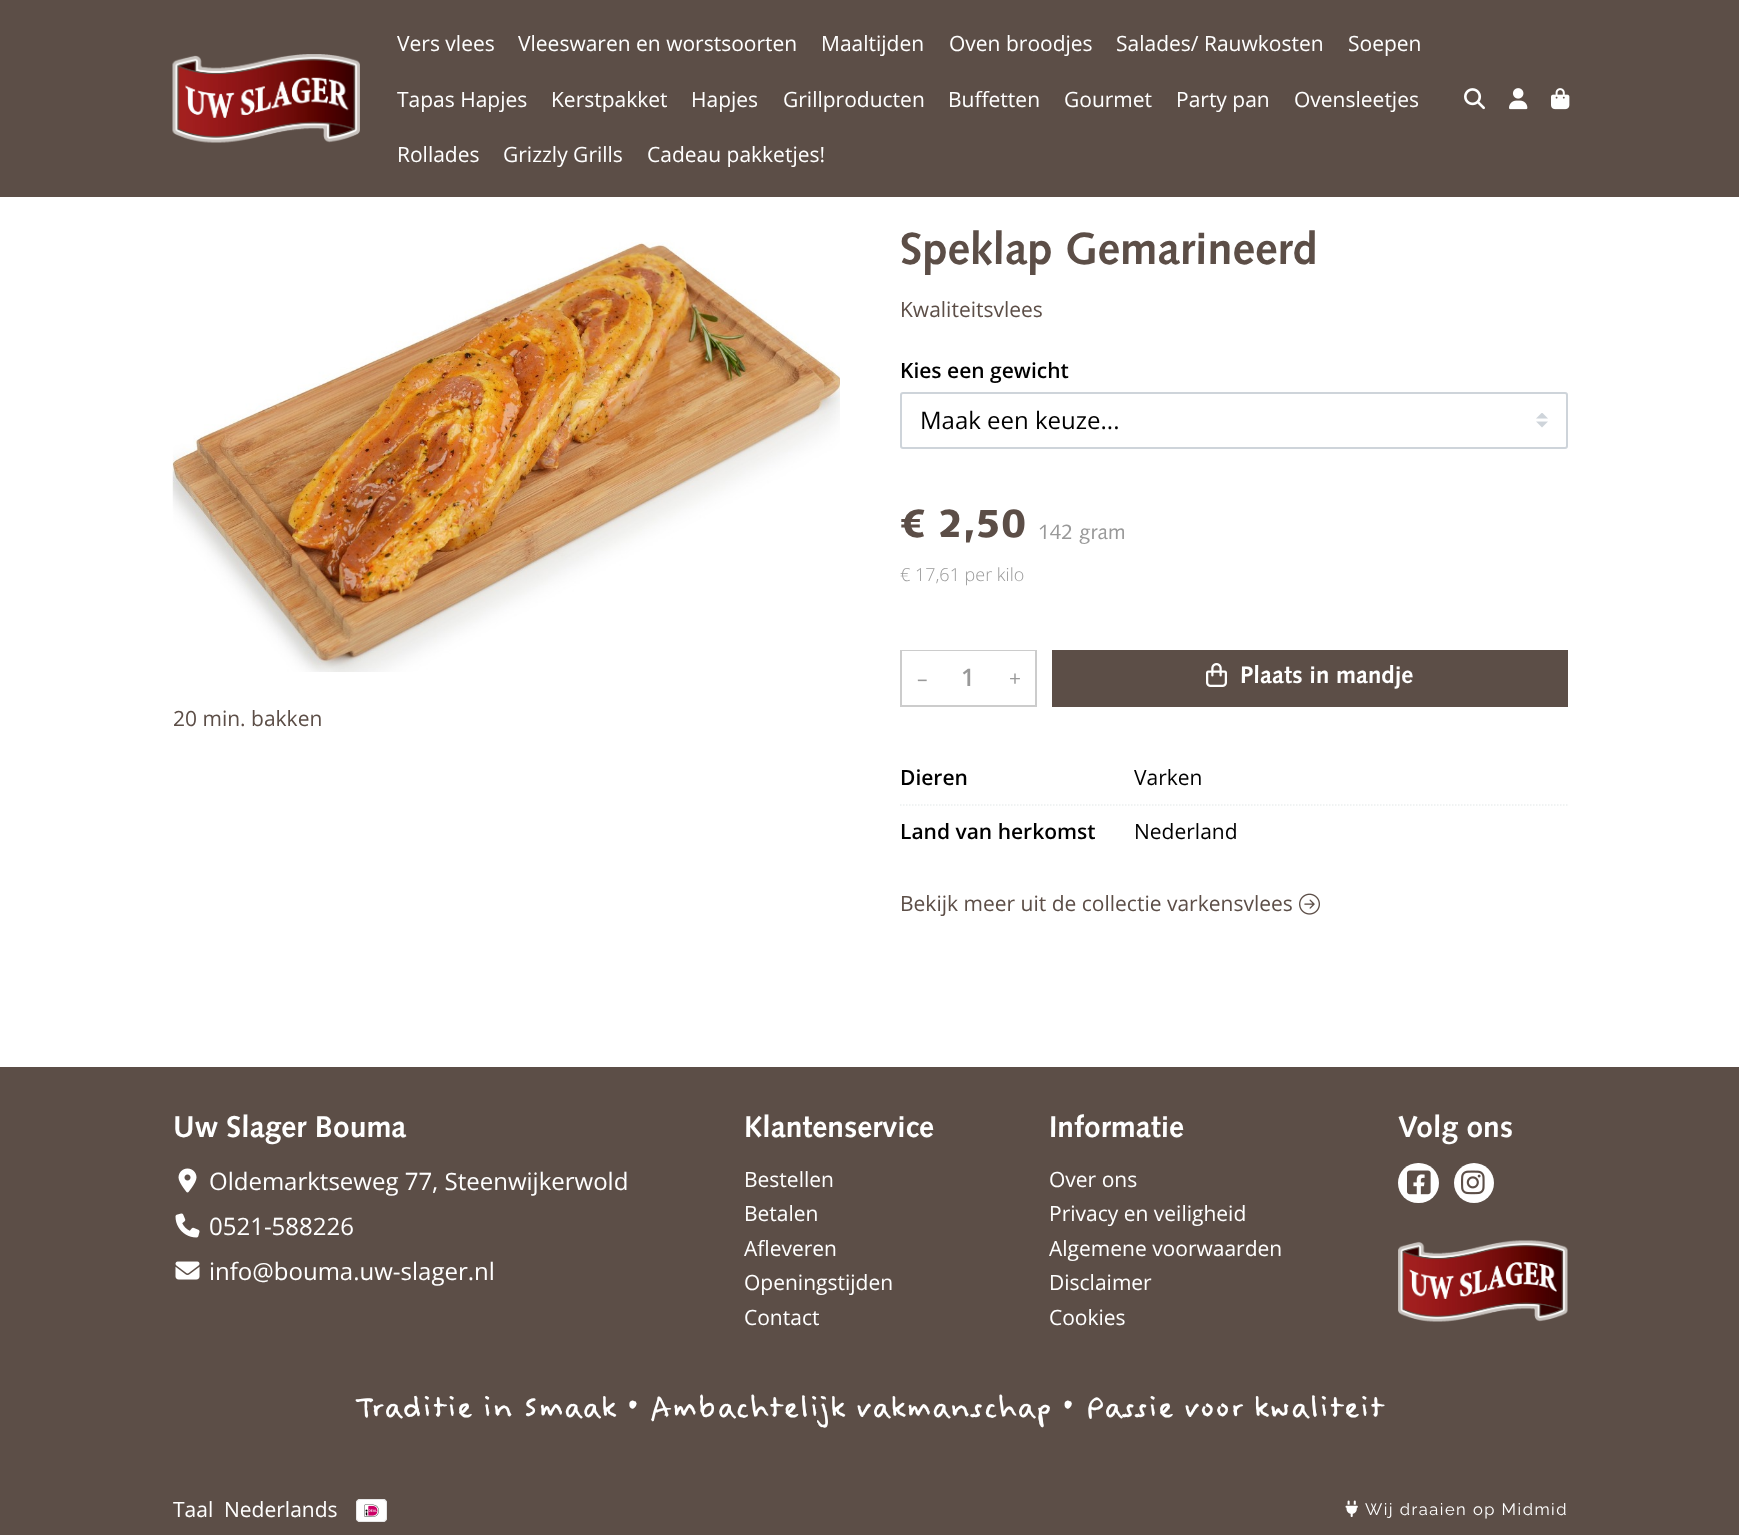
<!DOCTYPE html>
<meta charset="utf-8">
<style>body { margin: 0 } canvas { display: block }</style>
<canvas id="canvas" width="1739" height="1535"></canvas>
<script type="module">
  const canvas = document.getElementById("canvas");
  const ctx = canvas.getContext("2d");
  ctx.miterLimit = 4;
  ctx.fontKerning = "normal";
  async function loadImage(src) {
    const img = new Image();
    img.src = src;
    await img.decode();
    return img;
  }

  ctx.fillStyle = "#ffffff";
  ctx.fillRect(0, 0, 1739, 1535);
  ctx.fillStyle = "#5c4e47";
  ctx.fillRect(0, 0, 1739, 197);
  ctx.drawImage(await loadImage("img1.png"), 172, 54, 188, 89);
  ctx.font = "21px Open Sans";
  ctx.fillStyle = "#ffffff";
  ctx.fillText("Vers vlees", 397, 51);
  ctx.fillText("Vleeswaren en worstsoorten", 518, 51);
  ctx.fillText("Maaltijden", 821, 51);
  ctx.fillText("Oven broodjes", 949, 51);
  ctx.fillText("Salades/ Rauwkosten", 1116, 51);
  ctx.fillText("Soepen", 1348, 51);
  ctx.fillText("Tapas Hapjes", 397, 107);
  ctx.fillText("Kerstpakket", 551, 107);
  ctx.fillText("Hapjes", 691, 107);
  ctx.fillText("Grillproducten", 783, 107);
  ctx.fillText("Buffetten", 948, 107);
  ctx.fillText("Gourmet", 1064, 107);
  ctx.fillText("Party pan", 1176, 107);
  ctx.fillText("Ovensleetjes", 1294, 107);
  ctx.fillText("Rollades", 397, 162);
  ctx.fillText("Grizzly Grills", 503, 162);
  ctx.fillText("Cadeau pakketjes!", 647, 162);
  ctx.drawImage(await loadImage("img2.png"), 1464, 88, 21, 22);
  ctx.drawImage(await loadImage("img3.png"), 1509, 88, 19, 22);
  ctx.drawImage(await loadImage("img4.png"), 1551, 88, 19, 22);
  ctx.drawImage(await loadImage("img5.png"), 172, 240, 668, 432);
  ctx.fillStyle = "#5c4e47";
  ctx.fillText("20 min. bakken", 173, 726);
  ctx.font = "bold 45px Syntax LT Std";
  ctx.fillText("Speklap Gemarineerd", 900, 264);
  ctx.font = "21px Open Sans";
  ctx.fillText("Kwaliteitsvlees", 900, 317);
  ctx.font = "600 21px Open Sans";
  ctx.fillStyle = "#000000";
  ctx.fillText("Kies een gewicht", 900, 378);
  ctx.drawImage(await loadImage("img6.png"), 1536, 413, 12, 15);
  ctx.beginPath();
  ctx.roundRect(901, 393, 666, 55, 2);
  ctx.strokeStyle = "#ced4da";
  ctx.lineWidth = 2;
  ctx.stroke();
  ctx.font = "24px Open Sans";
  ctx.fillText("Maak een keuze...", 920, 429);
  ctx.font = "900 39px Syntax LT Std";
  ctx.fillStyle = "#5c4e47";
  ctx.fillText("€ 2,50", 900, 537);
  ctx.font = "21px Syntax LT Std";
  ctx.fillStyle = "#999999";
  ctx.fillText("142 gram", 1038, 539);
  ctx.font = "300 18px Open Sans";
  ctx.fillText("€ 17,61 per kilo", 900, 581);
  ctx.strokeStyle = "#cccccc";
  ctx.strokeRect(901, 651, 135, 55);
  ctx.fillStyle = "#ffffff";
  ctx.fillRect(902, 651, 133, 1);
  ctx.font = "21px Open Sans";
  ctx.fillStyle = "#999999";
  ctx.fillText("–", 917, 686);
  ctx.font = "600 24px Open Sans";
  ctx.fillText("1", 961, 686);
  ctx.font = "21px Open Sans";
  ctx.fillText("+", 1009, 686);
  ctx.fillStyle = "#5c4e47";
  ctx.fillRect(1052, 650, 516, 57);
  ctx.drawImage(await loadImage("img7.png"), 1206, 663, 21, 24);
  ctx.font = "bold 24px Syntax LT Std";
  ctx.fillStyle = "#ffffff";
  ctx.fillText("Plaats in mandje", 1240, 683);
  ctx.beginPath();
  ctx.moveTo(900, 805);
  ctx.lineTo(1567.5, 805);
  ctx.strokeStyle = "#eceff0";
  ctx.lineWidth = 1.5;
  ctx.setLineDash([1.5, 1.5]);
  ctx.stroke();
  ctx.font = "600 21px Open Sans";
  ctx.fillStyle = "#000000";
  ctx.fillText("Dieren", 900, 785);
  ctx.font = "21px Open Sans";
  ctx.fillText("Varken", 1134, 785);
  ctx.font = "600 21px Open Sans";
  ctx.fillText("Land van herkomst", 900, 839);
  ctx.font = "21px Open Sans";
  ctx.fillText("Nederland", 1134, 839);
  ctx.fillStyle = "#5c4e47";
  ctx.fillText("Bekijk meer uit de collectie varkensvlees", 900, 911);
  ctx.drawImage(await loadImage("img8.png"), 1299, 893, 21, 22);
  ctx.fillRect(0, 1067, 1739, 468);
  ctx.font = "bold 30px Syntax LT Std";
  ctx.fillStyle = "#ffffff";
  ctx.fillText("Uw Slager Bouma", 173, 1137);
  ctx.drawImage(await loadImage("img9.png"), 178, 1168, 19, 25);
  ctx.font = "24px Open Sans";
  ctx.fillText("Oldemarktseweg 77, Steenwijkerwold", 209, 1190);
  ctx.drawImage(await loadImage("img10.png"), 175, 1213, 25, 25);
  ctx.fillText("0521-588226", 209, 1235);
  ctx.drawImage(await loadImage("img11.png"), 175, 1261, 25, 19);
  ctx.fillText("info@bouma.uw-slager.nl", 209, 1280);
  ctx.font = "bold 30px Syntax LT Std";
  ctx.fillText("Klantenservice", 744, 1137);
  ctx.font = "21px Open Sans";
  ctx.fillText("Bestellen", 744, 1187);
  ctx.fillText("Betalen", 744, 1221);
  ctx.fillText("Afleveren", 744, 1256);
  ctx.fillText("Openingstijden", 744, 1290);
  ctx.fillText("Contact", 744, 1325);
  ctx.font = "bold 30px Syntax LT Std";
  ctx.fillText("Informatie", 1049, 1137);
  ctx.font = "21px Open Sans";
  ctx.fillText("Over ons", 1049, 1187);
  ctx.fillText("Privacy en veiligheid", 1049, 1221);
  ctx.fillText("Algemene voorwaarden", 1049, 1256);
  ctx.fillText("Disclaimer", 1049, 1290);
  ctx.fillText("Cookies", 1049, 1325);
  ctx.font = "bold 30px Syntax LT Std";
  ctx.fillText("Volg ons", 1398, 1137);
  ctx.beginPath();
  ctx.roundRect(1398, 1163, 41, 40, 20);
  ctx.fill();
  ctx.drawImage(await loadImage("img12.png"), 1407, 1170, 24, 25);
  ctx.beginPath();
  ctx.arc(1474, 1183, 20, 0, Math.PI * 2);
  ctx.fill();
  ctx.drawImage(await loadImage("img13.png"), 1461, 1170, 24, 25);
  ctx.drawImage(await loadImage("img14.png"), 1398, 1240, 170, 82);
  ctx.font = "39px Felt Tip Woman";
  ctx.fillText("Traditie in Smaak • Ambachtelijk vakmanschap • Passie voor kwaliteit", 356, 1416);
  ctx.font = "21px Open Sans";
  ctx.fillText("Taal", 173, 1517);
  ctx.fillText("Nederlands", 224, 1517);
  ctx.drawImage(await loadImage("img15.png"), 356, 1499, 31, 23);
  ctx.drawImage(await loadImage("img16.png"), 1345, 1500, 13, 17);
  ctx.letterSpacing = "1.5px";
  ctx.font = "16.5px Raleway";
  ctx.fillText("Wij draaien op Midmid", 1365, 1515);
</script>
